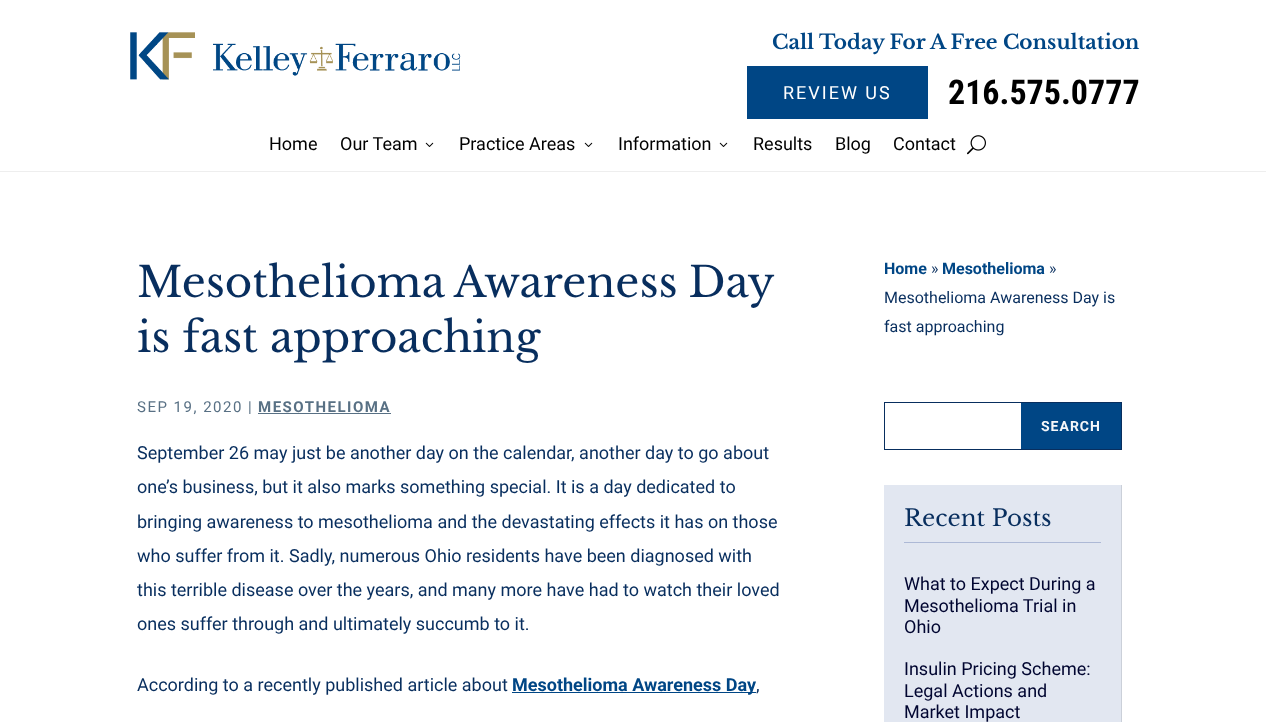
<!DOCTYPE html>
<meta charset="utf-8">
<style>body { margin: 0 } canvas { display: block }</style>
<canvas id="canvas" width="1266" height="722"></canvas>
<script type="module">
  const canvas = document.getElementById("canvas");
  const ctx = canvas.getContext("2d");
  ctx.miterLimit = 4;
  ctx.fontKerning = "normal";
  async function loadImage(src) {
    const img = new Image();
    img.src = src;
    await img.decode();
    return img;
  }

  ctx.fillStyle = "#ffffff";
  ctx.fillRect(0, 0, 1266, 722);
  ctx.drawImage(await loadImage("img1.png"), 130, 32, 331, 48);
  ctx.font = "bold 20px Libre Baskerville";
  ctx.fillStyle = "#004685";
  ctx.fillText("Call Today For A Free Consultation", 772, 49);
  ctx.fillRect(747, 66, 181, 53);
  ctx.letterSpacing = "2px";
  ctx.font = "18px Roboto";
  ctx.fillStyle = "#ffffff";
  ctx.fillText("REVIEW US", 783, 99);
  ctx.letterSpacing = "0px";
  ctx.font = "bold 34px Roboto Condensed";
  ctx.fillStyle = "#000000";
  ctx.fillText("216.575.0777", 948, 104);
  ctx.fillStyle = "#eeeeee";
  ctx.fillRect(0, 171, 1266, 1);
  ctx.font = "18px Roboto";
  ctx.fillStyle = "#000000";
  ctx.fillText("Home", 269, 150);
  ctx.fillText("Our Team", 340, 150);
  ctx.drawImage(await loadImage("img2.png"), 425, 142, 9, 5);
  ctx.fillText("Practice Areas", 459, 150);
  ctx.drawImage(await loadImage("img2.png"), 584, 142, 9, 5);
  ctx.fillText("Information", 618, 150);
  ctx.drawImage(await loadImage("img2.png"), 719, 142, 9, 5);
  ctx.fillText("Results", 753, 150);
  ctx.fillText("Blog", 835, 150);
  ctx.fillText("Contact", 893, 150);
  ctx.drawImage(await loadImage("img3.png"), 967, 135, 19, 20);
  ctx.wordSpacing = "-1px";
  ctx.font = "42px Libre Baskerville";
  ctx.fillStyle = "#082e5e";
  ctx.fillText("Mesothelioma Awareness Day", 137, 297);
  ctx.wordSpacing = "0px";
  ctx.fillText("is fast approaching", 137, 352);
  ctx.letterSpacing = "1.5px";
  ctx.font = "15px Roboto";
  ctx.fillStyle = "#587084";
  ctx.fillText("SEP 19, 2020 |", 137, 412);
  ctx.font = "bold 15px Roboto";
  ctx.fillText("MESOTHELIOMA", 258, 412);
  ctx.fillRect(258, 413, 133, 1);
  ctx.letterSpacing = "0px";
  ctx.font = "18px Roboto";
  ctx.fillStyle = "#082e5e";
  ctx.fillText("September 26 may just be another day on the calendar, another day to go about", 137, 459);
  ctx.fillText("one’s business, but it also marks something special. It is a day dedicated to", 137, 493);
  ctx.fillText("bringing awareness to mesothelioma and the devastating effects it has on those", 137, 528);
  ctx.fillText("who suffer from it. Sadly, numerous Ohio residents have been diagnosed with", 137, 562);
  ctx.fillText("this terrible disease over the years, and many more have had to watch their loved", 137, 596);
  ctx.fillText("ones suffer through and ultimately succumb to it.", 137, 630);
  ctx.fillText("According to a recently published article about", 137, 691);
  ctx.fillStyle = "#004685";
  ctx.fillRect(512, 692, 244, 1);
  ctx.font = "bold 18px Roboto";
  ctx.fillText("Mesothelioma Awareness Day", 512, 691);
  ctx.font = "18px Roboto";
  ctx.fillStyle = "#082e5e";
  ctx.fillText(",", 756, 691);
  ctx.font = "bold 16px Roboto";
  ctx.fillStyle = "#004685";
  ctx.fillText("Home", 884, 274);
  ctx.font = "16px Roboto";
  ctx.fillStyle = "#082e5e";
  ctx.fillText("»", 931, 274);
  ctx.font = "bold 16px Roboto";
  ctx.fillStyle = "#004685";
  ctx.fillText("Mesothelioma", 942, 274);
  ctx.font = "16px Roboto";
  ctx.fillStyle = "#082e5e";
  ctx.fillText("»", 1049, 274);
  ctx.fillText("Mesothelioma Awareness Day is", 884, 303);
  ctx.fillText("fast approaching", 884, 332);
  ctx.strokeStyle = "#082e5e";
  ctx.strokeRect(884.5, 402.5, 237, 47);
  ctx.fillStyle = "#004685";
  ctx.fillRect(1021, 403, 100, 46);
  ctx.letterSpacing = "1px";
  ctx.font = "bold 14px Roboto";
  ctx.fillStyle = "#f5f7fa";
  ctx.fillText("SEARCH", 1041, 431);
  ctx.fillStyle = "#e2e7f1";
  ctx.fillRect(884, 485, 237, 237);
  ctx.fillStyle = "#cbd0d9";
  ctx.fillRect(1121, 485, 1, 237);
  ctx.fillStyle = "#adb9d6";
  ctx.fillRect(904, 542, 197, 1);
  ctx.letterSpacing = "0px";
  ctx.font = "23px Libre Baskerville";
  ctx.fillStyle = "#082e5e";
  ctx.fillText("Recent Posts", 904, 526);
  ctx.font = "18px Roboto";
  ctx.fillStyle = "#000530";
  ctx.fillText("What to Expect During a", 904, 590);
  ctx.fillText("Mesothelioma Trial in", 904, 612);
  ctx.fillText("Ohio", 904, 633);
  ctx.fillText("Insulin Pricing Scheme:", 904, 675);
  ctx.fillText("Legal Actions and", 904, 697);
  ctx.fillText("Market Impact", 904, 718);
</script>
